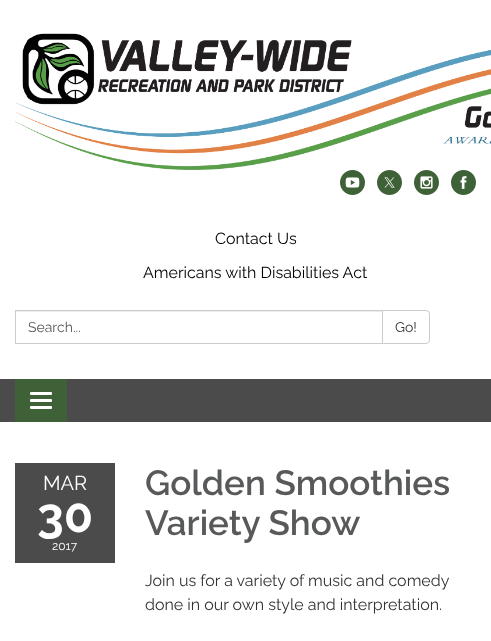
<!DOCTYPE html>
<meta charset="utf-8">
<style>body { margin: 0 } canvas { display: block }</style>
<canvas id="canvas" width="491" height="641"></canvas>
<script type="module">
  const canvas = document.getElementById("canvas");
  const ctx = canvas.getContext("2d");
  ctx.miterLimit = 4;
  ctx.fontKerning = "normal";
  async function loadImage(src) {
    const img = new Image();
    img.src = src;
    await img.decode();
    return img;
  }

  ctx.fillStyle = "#4b4b4b";
  ctx.fillRect(0, 0, 491, 641);
  ctx.fillStyle = "#ffffff";
  ctx.fillRect(0, 0, 491, 379);
  ctx.drawImage(await loadImage("img1.png"), 15, 33, 476, 137);
  ctx.drawImage(await loadImage("img2.png"), 340, 170, 25, 25);
  ctx.drawImage(await loadImage("img3.png"), 377, 170, 25, 25);
  ctx.drawImage(await loadImage("img4.png"), 414, 170, 25, 25);
  ctx.drawImage(await loadImage("img5.png"), 451, 170, 25, 25);
  ctx.font = "16px Raleway";
  ctx.fillStyle = "#000000";
  ctx.fillText("Contact Us", 215, 244);
  ctx.fillText("Americans with Disabilities Act", 143, 278);
  ctx.fillStyle = "#ececec";
  ctx.fillRect(16, 311, 366, 1);
  ctx.strokeStyle = "#cccccc";
  ctx.strokeRect(15.5, 310.5, 367, 33);
  ctx.font = "14px Raleway";
  ctx.fillStyle = "#58595b";
  ctx.fillText("Search...", 28, 332);
  ctx.fillStyle = "#ffffff";
  ctx.beginPath();
  ctx.roundRect(382.5, 310.5, 47, 33, [0, 3.5, 3.5, 0]);
  ctx.fill();
  ctx.stroke();
  ctx.fillStyle = "#333333";
  ctx.fillText("Go!", 395, 332);
  ctx.fillStyle = "#3f6138";
  ctx.fillRect(15, 379, 52, 43);
  ctx.fillStyle = "#ffffff";
  ctx.beginPath();
  ctx.roundRect(30, 392, 22, 3, 1);
  ctx.fill();
  ctx.beginPath();
  ctx.roundRect(30, 399, 22, 3, 1);
  ctx.fill();
  ctx.beginPath();
  ctx.roundRect(30, 406, 22, 3, 1);
  ctx.fill();
  ctx.fillRect(0, 422, 491, 219);
  ctx.fillStyle = "#4b4b4b";
  ctx.fillRect(15, 463, 100, 100);
  ctx.font = "20px Raleway";
  ctx.fillStyle = "#ffffff";
  ctx.fillText("MAR", 43, 490);
  ctx.font = "bold 48px Raleway";
  ctx.fillText("30", 37, 532);
  ctx.font = "12px Raleway";
  ctx.fillText("2017", 52, 550);
  ctx.font = "600 35px Raleway";
  ctx.fillStyle = "#58595b";
  ctx.fillText("Golden Smoothies", 145, 495);
  ctx.fillText("Variety Show", 145, 535);
  ctx.font = "16px Raleway";
  ctx.fillStyle = "#333333";
  ctx.fillText("Join us for a variety of music and comedy", 145, 586);
  ctx.fillText("done in our own style and interpretation.", 145, 610);
</script>
